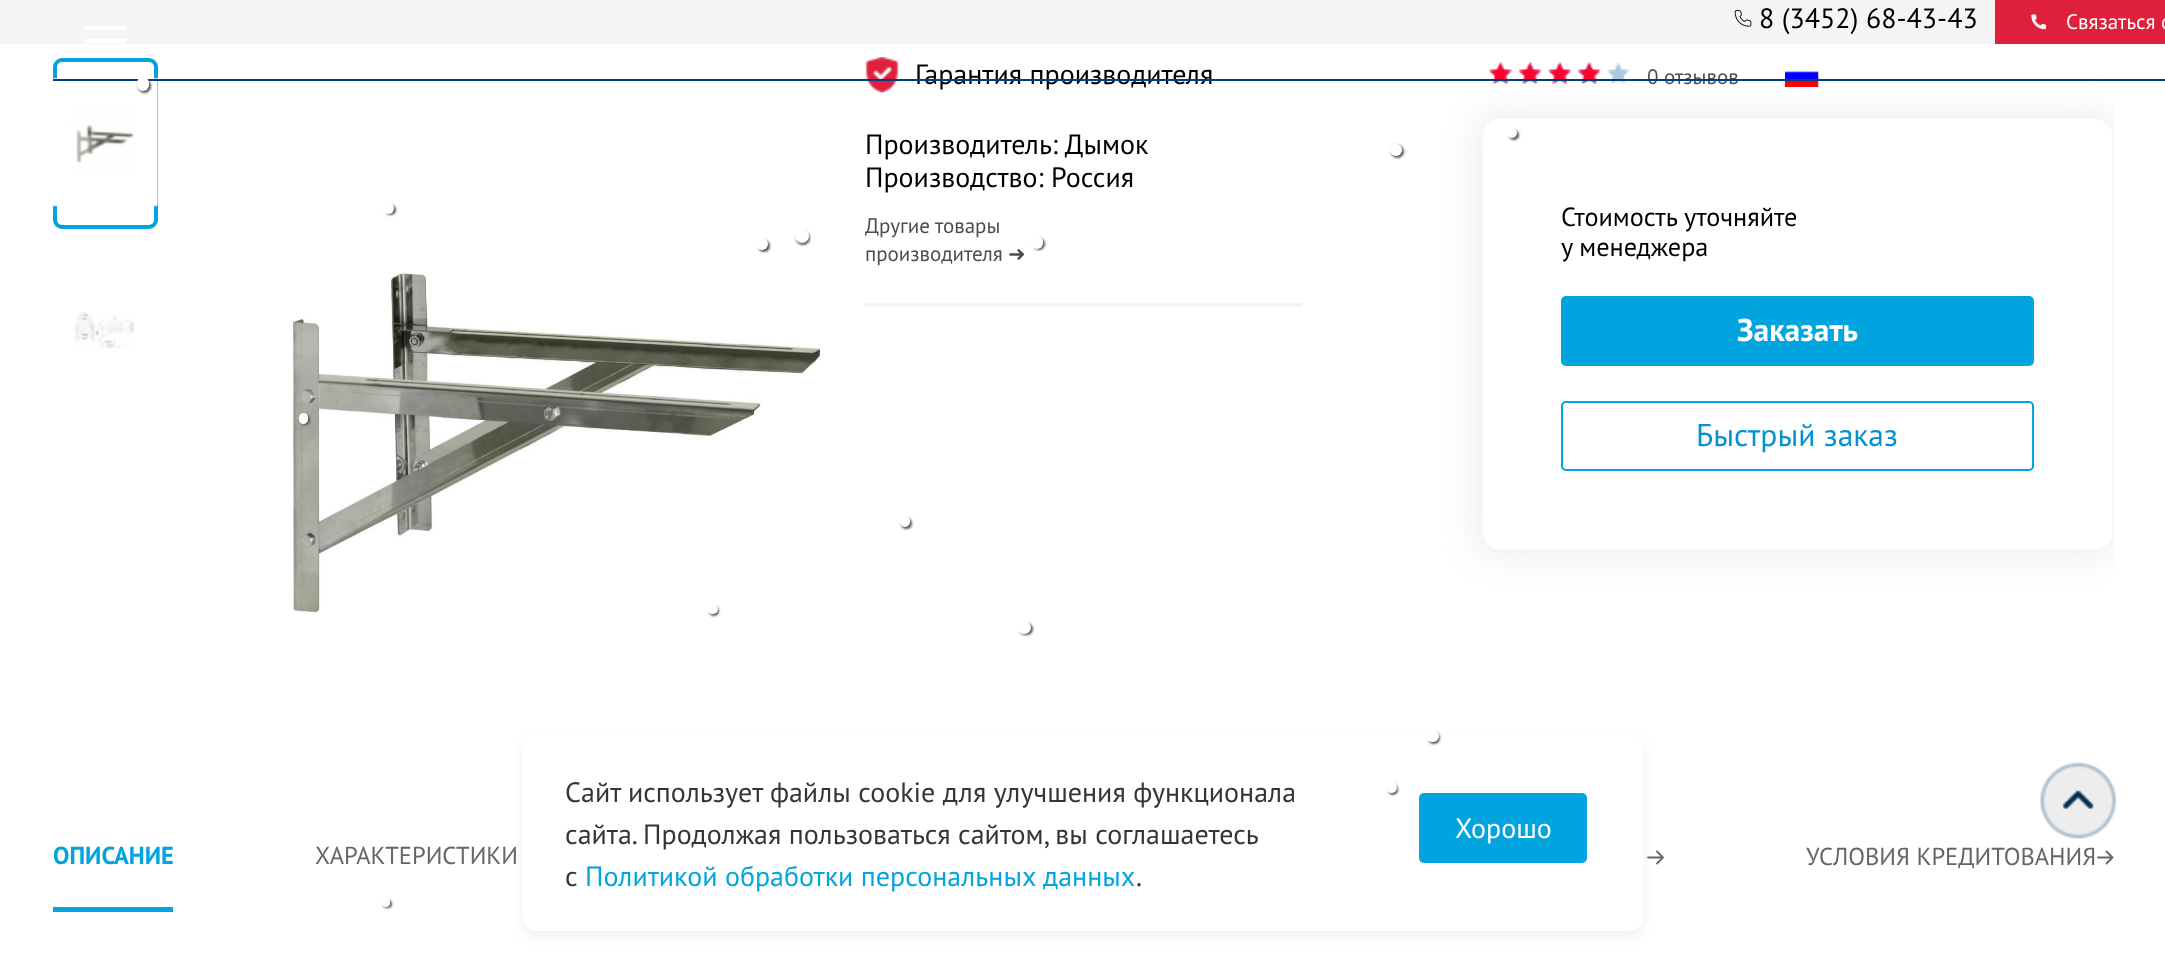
<!DOCTYPE html>
<meta charset="utf-8">
<style>body { margin: 0 } canvas { display: block }</style>
<canvas id="canvas" width="2165" height="959"></canvas>
<script type="module">
  const canvas = document.getElementById("canvas");
  const ctx = canvas.getContext("2d");
  ctx.miterLimit = 4;
  ctx.fontKerning = "normal";
  async function loadImage(src) {
    const img = new Image();
    img.src = src;
    await img.decode();
    return img;
  }

  ctx.fillStyle = "#ffffff";
  ctx.fillRect(0, 0, 2165, 959);
  ctx.fillStyle = "#f5f5f6";
  ctx.fillRect(0, 0, 1995, 44);
  ctx.fillStyle = "#ffffff";
  ctx.fillRect(84, 26, 42, 4);
  ctx.fillRect(84, 39, 42, 4);
  ctx.drawImage(await loadImage("img1.png"), 1734, 10, 18, 17);
  ctx.font = "28px PT Sans";
  ctx.fillStyle = "#000000";
  ctx.fillText("8 (3452) 68-43-43", 1759, 28);
  ctx.fillStyle = "#de203d";
  ctx.fillRect(1995, 0, 170, 44);
  ctx.drawImage(await loadImage("img2.png"), 2030, 14, 17, 16);
  ctx.font = "21px PT Sans";
  ctx.fillStyle = "#ffffff";
  ctx.fillText("Связаться с", 2066, 29);
  ctx.beginPath();
  ctx.roundRect(55, 60, 101, 167, 7);
  ctx.strokeStyle = "#02a4e0";
  ctx.lineWidth = 4;
  ctx.stroke();
  ctx.drawImage(await loadImage("img3.png"), 53, 78, 105, 129);
  ctx.drawImage(await loadImage("img6.png"), 865, 57, 34, 36);
  ctx.font = "28px PT Sans";
  ctx.fillStyle = "#000000";
  ctx.fillText("Гарантия производителя", 915, 84);
  ctx.drawImage(await loadImage("img8.png"), 1490, 62, 140, 22);
  ctx.drawImage(await loadImage("img7.png"), 1489, 62, 113, 22);
  ctx.font = "21px PT Sans";
  ctx.fillStyle = "#4d4d4d";
  ctx.fillText("0 отзывов", 1647, 84);
  ctx.save();
  ctx.beginPath();
  ctx.rect(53, 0, 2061, 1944);
  ctx.clip();
  ctx.beginPath();
  ctx.moveTo(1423, 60);
  ctx.lineTo(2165, 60);
  ctx.lineTo(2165, 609);
  ctx.lineTo(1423, 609);
  ctx.closePath();
  ctx.moveTo(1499, 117);
  ctx.lineTo(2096, 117);
  ctx.bezierCurveTo(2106, 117, 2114, 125, 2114, 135);
  ctx.lineTo(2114, 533);
  ctx.bezierCurveTo(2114, 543, 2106, 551, 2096, 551);
  ctx.lineTo(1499, 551);
  ctx.bezierCurveTo(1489, 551, 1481, 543, 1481, 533);
  ctx.lineTo(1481, 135);
  ctx.bezierCurveTo(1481, 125, 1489, 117, 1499, 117);
  ctx.closePath();
  ctx.clip("evenodd");
  ctx.fillStyle = "rgba(229, 229, 229, 0.75)";
  ctx.filter = "blur(17.5px)";
  ctx.beginPath();
  ctx.roundRect(1477, 114, 641, 441, 21);
  ctx.fill();
  ctx.filter = "none";
  ctx.restore();
  ctx.drawImage(await loadImage("img9.png"), 1785, 71, 34, 16);
  ctx.fillStyle = "#003f79";
  ctx.fillRect(53, 79, 2112, 2);
  ctx.drawImage(await loadImage("img4.png"), 74, 312, 61, 37);
  ctx.drawImage(await loadImage("img5.png"), 291, 272, 533, 342);
  ctx.font = "28px PT Sans";
  ctx.fillStyle = "#000000";
  ctx.fillText("Производитель: Дымок", 865, 154);
  ctx.fillText("Производство: Россия", 865, 187);
  ctx.font = "21px PT Sans";
  ctx.fillStyle = "#4d4d4d";
  ctx.fillText("Другие товары", 865, 233);
  ctx.fillText("производителя", 865, 261);
  ctx.font = "21px DejaVu Sans";
  ctx.fillText("➜", 1008, 261);
  ctx.fillStyle = "#f5f5f6";
  ctx.fillRect(865, 303, 437, 4);
  ctx.beginPath();
  ctx.roundRect(1482, 118, 631, 432, 17);
  ctx.strokeStyle = "rgba(229, 229, 229, 0.35)";
  ctx.lineWidth = 2;
  ctx.stroke();
  ctx.font = "26.25px PT Sans";
  ctx.fillStyle = "#000000";
  ctx.fillText("Стоимость уточняйте", 1561, 226);
  ctx.fillText("у менеджера", 1561, 256);
  ctx.fillStyle = "#02a4e0";
  ctx.beginPath();
  ctx.roundRect(1561, 296, 473, 70, 5);
  ctx.fill();
  ctx.font = "bold 31.5px PT Sans";
  ctx.fillStyle = "#ffffff";
  ctx.fillText("Заказать", 1737, 341);
  ctx.beginPath();
  ctx.roundRect(1562, 402, 471, 68, 4);
  ctx.strokeStyle = "#02a4e0";
  ctx.stroke();
  ctx.font = "31.5px PT Sans";
  ctx.fillStyle = "#0292d0";
  ctx.fillText("Быстрый заказ", 1696, 446);
  ctx.font = "bold 24.5px PT Sans";
  ctx.fillStyle = "#02a4e0";
  ctx.fillText("ОПИСАНИЕ", 53, 864);
  ctx.fillRect(53, 907, 120, 5);
  ctx.font = "24.5px PT Sans";
  ctx.fillStyle = "#666666";
  ctx.fillText("ХАРАКТЕРИСТИКИ", 315, 864);
  ctx.beginPath();
  ctx.moveTo(1663, 857.5);
  ctx.lineTo(1648, 857.5);
  ctx.moveTo(1663, 857.5);
  ctx.lineTo(1657, 863.5);
  ctx.moveTo(1663, 857.5);
  ctx.lineTo(1657, 851.5);
  ctx.strokeStyle = "#666666";
  ctx.lineWidth = 1.8;
  ctx.lineCap = "round";
  ctx.lineJoin = "round";
  ctx.stroke();
  ctx.fillText("УСЛОВИЯ КРЕДИТОВАНИЯ", 1806, 865);
  ctx.beginPath();
  ctx.moveTo(2112.5, 857.5);
  ctx.lineTo(2098, 857.5);
  ctx.moveTo(2112.5, 857.5);
  ctx.lineTo(2106.5, 863.5);
  ctx.moveTo(2112.5, 857.5);
  ctx.lineTo(2106.5, 851.5);
  ctx.stroke();
  ctx.fillStyle = "#555555";
  ctx.filter = "blur(1px)";
  ctx.beginPath();
  ctx.roundRect(138, 79, 13, 14, 6.5);
  ctx.fill();
  ctx.filter = "none";
  ctx.fillStyle = "#ffffff";
  ctx.beginPath();
  ctx.roundRect(137, 77, 12, 14, 6);
  ctx.fill();
  ctx.fillStyle = "#555555";
  ctx.filter = "blur(1px)";
  ctx.beginPath();
  ctx.roundRect(1509, 130, 10, 10, 5);
  ctx.fill();
  ctx.filter = "none";
  ctx.fillStyle = "#ffffff";
  ctx.beginPath();
  ctx.arc(1512, 133, 5, 0, Math.PI * 2);
  ctx.fill();
  ctx.fillStyle = "#555555";
  ctx.filter = "blur(1px)";
  ctx.beginPath();
  ctx.roundRect(1391, 145, 13, 13, 6.5);
  ctx.fill();
  ctx.filter = "none";
  ctx.fillStyle = "#ffffff";
  ctx.beginPath();
  ctx.arc(1396, 150, 6, 0, Math.PI * 2);
  ctx.fill();
  ctx.fillStyle = "#555555";
  ctx.filter = "blur(1px)";
  ctx.beginPath();
  ctx.roundRect(385, 205, 11, 10, 5);
  ctx.fill();
  ctx.filter = "none";
  ctx.fillStyle = "#ffffff";
  ctx.beginPath();
  ctx.arc(388.5, 208.5, 5.5, 0, Math.PI * 2);
  ctx.fill();
  ctx.fillStyle = "#555555";
  ctx.filter = "blur(1px)";
  ctx.beginPath();
  ctx.roundRect(758, 240, 12, 12, 6);
  ctx.fill();
  ctx.filter = "none";
  ctx.fillStyle = "#ffffff";
  ctx.beginPath();
  ctx.arc(762, 244, 6, 0, Math.PI * 2);
  ctx.fill();
  ctx.fillStyle = "#555555";
  ctx.filter = "blur(1px)";
  ctx.beginPath();
  ctx.roundRect(796, 231, 14, 14, 7);
  ctx.fill();
  ctx.filter = "none";
  ctx.fillStyle = "#ffffff";
  ctx.beginPath();
  ctx.arc(802, 236, 7, 0, Math.PI * 2);
  ctx.fill();
  ctx.fillStyle = "#555555";
  ctx.filter = "blur(1px)";
  ctx.beginPath();
  ctx.roundRect(1033, 238, 12, 12, 6);
  ctx.fill();
  ctx.filter = "none";
  ctx.fillStyle = "#ffffff";
  ctx.beginPath();
  ctx.roundRect(1031, 236, 12, 13, 6);
  ctx.fill();
  ctx.fillStyle = "#555555";
  ctx.filter = "blur(1px)";
  ctx.beginPath();
  ctx.roundRect(301, 415, 9, 10, 4.5);
  ctx.fill();
  ctx.filter = "none";
  ctx.fillStyle = "#ffffff";
  ctx.beginPath();
  ctx.roundRect(299, 413, 9, 11, 4.5);
  ctx.fill();
  ctx.fillStyle = "#555555";
  ctx.filter = "blur(1px)";
  ctx.beginPath();
  ctx.roundRect(901, 518, 11, 11, 5.5);
  ctx.fill();
  ctx.filter = "none";
  ctx.fillStyle = "#ffffff";
  ctx.beginPath();
  ctx.roundRect(900, 516, 10, 11, 5);
  ctx.fill();
  ctx.fillStyle = "#555555";
  ctx.filter = "blur(1px)";
  ctx.beginPath();
  ctx.roundRect(709, 606, 10, 10, 5);
  ctx.fill();
  ctx.filter = "none";
  ctx.fillStyle = "#ffffff";
  ctx.beginPath();
  ctx.roundRect(707, 604, 11, 10, 5);
  ctx.fill();
  ctx.fillStyle = "#555555";
  ctx.filter = "blur(1px)";
  ctx.beginPath();
  ctx.roundRect(1019, 623, 14, 12, 6);
  ctx.fill();
  ctx.filter = "none";
  ctx.fillStyle = "#ffffff";
  ctx.beginPath();
  ctx.roundRect(1017, 621, 14, 13, 6.5);
  ctx.fill();
  ctx.fillStyle = "rgba(184, 177, 169, 0.2)";
  ctx.filter = "blur(7px)";
  ctx.beginPath();
  ctx.roundRect(523, 740, 1120, 196, 14);
  ctx.fill();
  ctx.filter = "none";
  ctx.fillStyle = "#ffffff";
  ctx.beginPath();
  ctx.roundRect(523, 735, 1120, 196, 14);
  ctx.fill();
  ctx.fillStyle = "#555555";
  ctx.filter = "blur(1px)";
  ctx.beginPath();
  ctx.roundRect(1428, 732, 12, 12, 6);
  ctx.fill();
  ctx.filter = "none";
  ctx.fillStyle = "#ffffff";
  ctx.beginPath();
  ctx.roundRect(1426, 730, 13, 12, 6);
  ctx.fill();
  ctx.fillStyle = "#555555";
  ctx.filter = "blur(1px)";
  ctx.beginPath();
  ctx.roundRect(1388, 784, 10, 11, 5);
  ctx.fill();
  ctx.filter = "none";
  ctx.fillStyle = "#ffffff";
  ctx.beginPath();
  ctx.arc(1391.5, 787.5, 5.5, 0, Math.PI * 2);
  ctx.fill();
  ctx.fillStyle = "#555555";
  ctx.filter = "blur(1px)";
  ctx.beginPath();
  ctx.roundRect(383, 900, 9, 8, 4);
  ctx.fill();
  ctx.filter = "none";
  ctx.fillStyle = "#ffffff";
  ctx.beginPath();
  ctx.roundRect(382, 898, 8, 9, 4);
  ctx.fill();
  ctx.font = "28px PT Sans";
  ctx.fillStyle = "#353535";
  ctx.fillText("Сайт использует файлы cookie для улучшения функционала", 565, 802);
  ctx.fillText("сайта. Продолжая пользоваться сайтом, вы соглашаетесь", 565, 844);
  ctx.fillText("с", 565, 886);
  ctx.fillStyle = "#02a4e0";
  ctx.fillText("Политикой обработки персональных данных", 585, 886);
  ctx.fillStyle = "#353535";
  ctx.fillText(".", 1136, 886);
  ctx.fillStyle = "#02a4e0";
  ctx.beginPath();
  ctx.roundRect(1419, 793, 168, 70, 5);
  ctx.fill();
  ctx.fillStyle = "#ffffff";
  ctx.fillText("Хорошо", 1455, 838);
  ctx.drawImage(await loadImage("img10.png"), 2040, 762, 77, 77);
</script>
